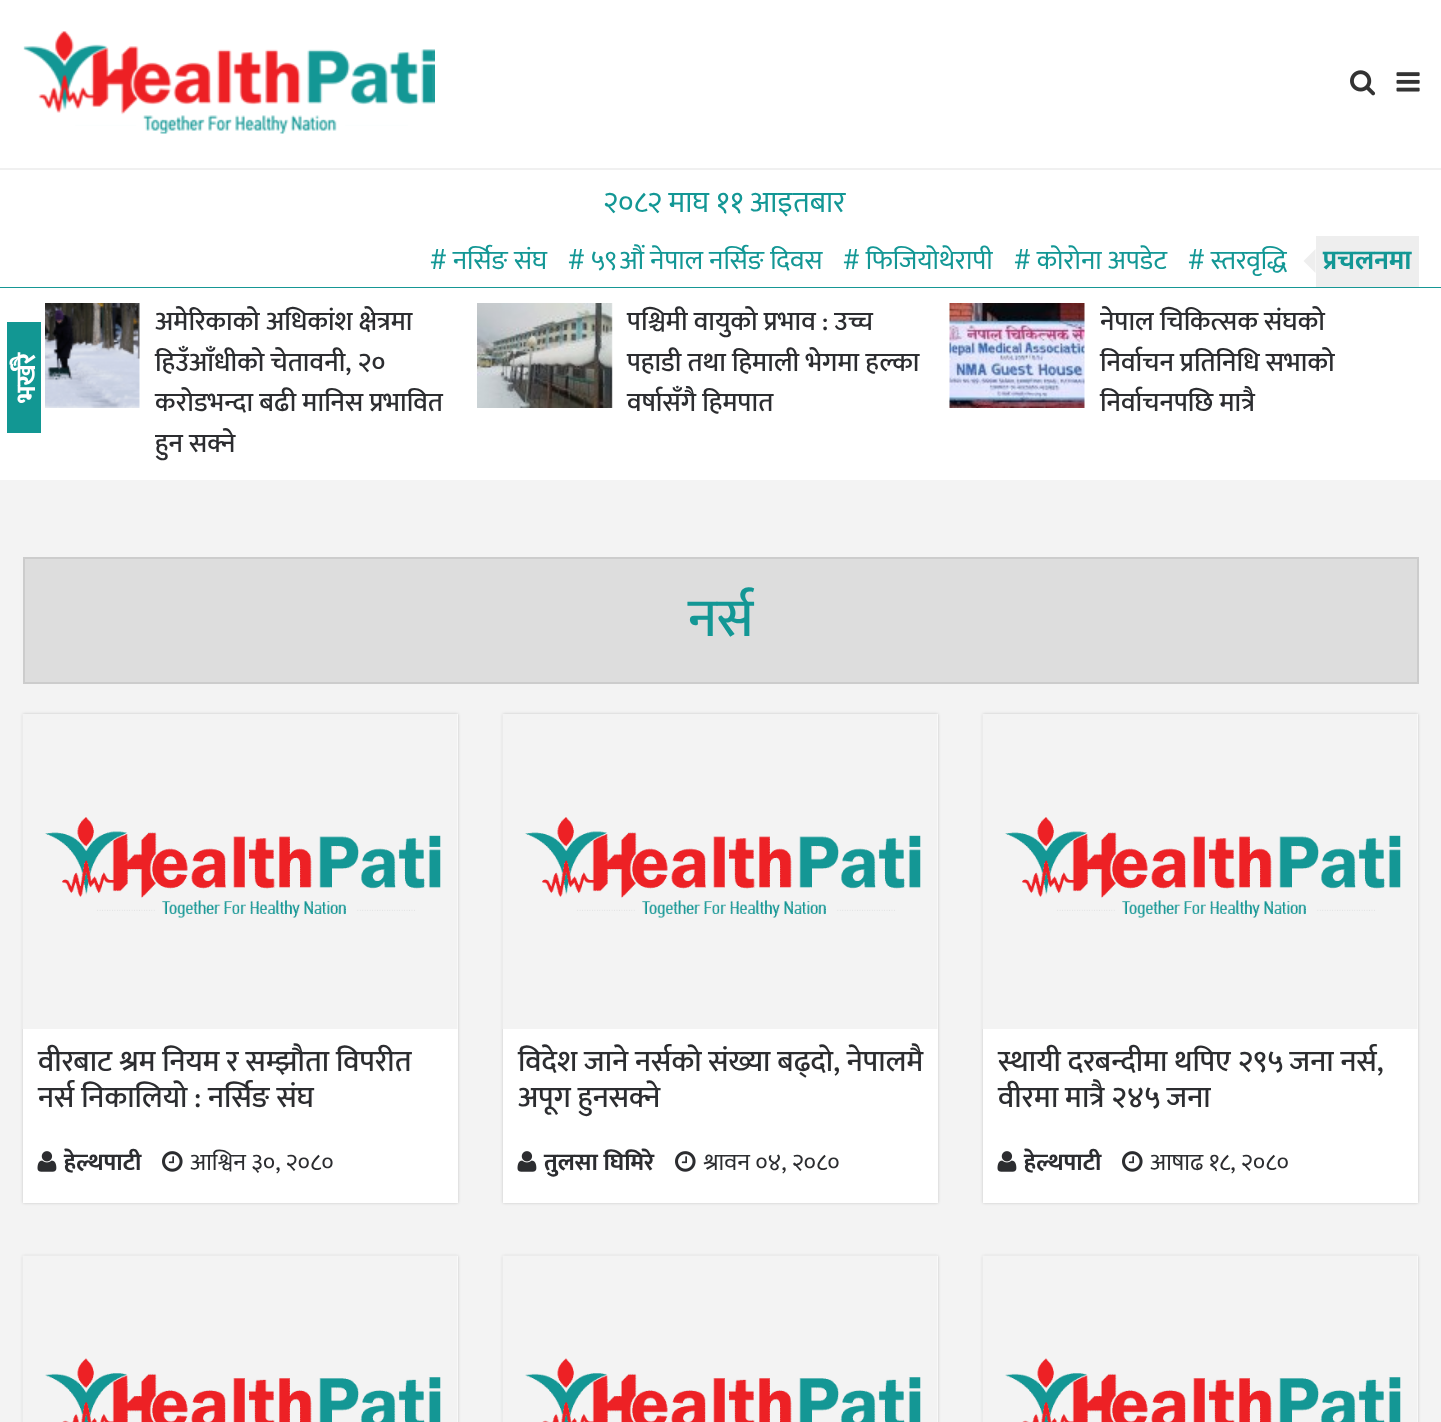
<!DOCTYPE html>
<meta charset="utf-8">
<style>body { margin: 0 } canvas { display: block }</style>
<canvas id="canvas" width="1441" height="1422"></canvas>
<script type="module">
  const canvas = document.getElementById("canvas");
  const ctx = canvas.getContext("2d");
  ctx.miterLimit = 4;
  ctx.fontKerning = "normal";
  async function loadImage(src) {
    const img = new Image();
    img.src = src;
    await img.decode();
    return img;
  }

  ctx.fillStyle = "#f3f3f3";
  ctx.fillRect(0, 0, 1441, 1422);
  ctx.fillStyle = "#ffffff";
  ctx.fillRect(0, 0, 1441, 168);
  ctx.fillStyle = "#f0f0f0";
  ctx.fillRect(0, 168, 1441, 2);
  ctx.drawImage(await loadImage("img1.png"), 23, 31, 412, 103);
  ctx.drawImage(await loadImage("img2.png"), 1350, 70, 26, 26);
  ctx.drawImage(await loadImage("img3.png"), 1396, 72, 24, 20);
  ctx.fillStyle = "#ffffff";
  ctx.fillRect(0, 170, 1441, 117);
  ctx.fillStyle = "#169795";
  ctx.fillRect(0, 287, 1441, 1);
  ctx.font = "30px Mukta";
  ctx.fillStyle = "#139795";
  ctx.fillText("२०८२ माघ ११ आइतबार", 603, 212);
  ctx.font = "27px Mukta";
  ctx.fillText("# नर्सिङ संघ", 430, 269);
  ctx.fillText("# ५९औं नेपाल नर्सिङ दिवस", 568, 269);
  ctx.fillText("# फिजियोथेरापी", 843, 269);
  ctx.fillText("# कोरोना अपडेट", 1014, 269);
  ctx.fillText("# स्तरवृद्धि", 1188, 269);
  ctx.fillStyle = "#eeeeee";
  ctx.fillRect(1316, 236, 103, 51);
  ctx.beginPath();
  ctx.moveTo(1315.5, 249);
  ctx.lineTo(1315.5, 273);
  ctx.lineTo(1303.5, 261);
  ctx.closePath();
  ctx.fill();
  ctx.font = "bold 27px Mukta";
  ctx.fillStyle = "#139795";
  ctx.fillText("प्रचलनमा", 1323, 269);
  ctx.fillStyle = "#ffffff";
  ctx.fillRect(0, 288, 1441, 192);
  ctx.fillStyle = "#129793";
  ctx.fillRect(7, 322, 34, 111);
  ctx.fillStyle = "#ffffff";
  ctx.save();
  ctx.translate(35, 403);
  ctx.rotate(-90 * Math.PI / 180);
  ctx.fillText("भर्खरै", 0, 0);
  ctx.restore();
  ctx.drawImage(await loadImage("img4.png"), 45, 303, 95, 105);
  ctx.font = "500 27px Mukta";
  ctx.fillStyle = "#2c2d30";
  ctx.fillText("अमेरिकाको अधिकांश क्षेत्रमा", 155, 330);
  ctx.fillText("हिउँआँधीको चेतावनी, २०", 155, 371);
  ctx.fillText("करोडभन्दा बढी मानिस प्रभावित", 155, 411);
  ctx.save();
  ctx.beginPath();
  ctx.rect(155, 303, 300, 162);
  ctx.clip();
  ctx.fillText("हुन सक्ने", 155, 452);
  ctx.restore();
  ctx.drawImage(await loadImage("img5.png"), 477, 303, 136, 105);
  ctx.fillText("पश्चिमी वायुको प्रभाव : उच्च", 627, 330);
  ctx.fillText("पहाडी तथा हिमाली भेगमा हल्का", 627, 371);
  ctx.fillText("वर्षासँगै हिमपात", 627, 411);
  ctx.drawImage(await loadImage("img6.png"), 949, 303, 136, 105);
  ctx.save();
  ctx.beginPath();
  ctx.rect(1100, 303, 300, 122);
  ctx.clip();
  ctx.fillText("नेपाल चिकित्सक संघको", 1100, 330);
  ctx.restore();
  ctx.fillText("निर्वाचन प्रतिनिधि सभाको", 1100, 371);
  ctx.fillText("निर्वाचनपछि मात्रै", 1100, 411);
  ctx.fillStyle = "#dddddd";
  ctx.beginPath();
  ctx.rect(24, 558, 1394, 125);
  ctx.fill();
  ctx.strokeStyle = "#cccccc";
  ctx.lineWidth = 2;
  ctx.stroke();
  ctx.font = "500 54px Mukta";
  ctx.fillStyle = "#139795";
  ctx.fillText("नर्स", 688, 636);
  ctx.fillStyle = "rgba(0, 0, 0, 0.18)";
  ctx.filter = "blur(1.5px)";
  ctx.beginPath();
  ctx.rect(23, 714, 435, 489);
  ctx.fill();
  ctx.filter = "none";
  ctx.fillStyle = "#ffffff";
  ctx.fillRect(23, 714, 435, 489);
  ctx.drawImage(await loadImage("img7.png"), 22, 714, 436, 315);
  ctx.font = "500 30px Mukta";
  ctx.fillStyle = "#2c2d30";
  ctx.fillText("वीरबाट श्रम नियम र सम्झौता विपरीत", 38, 1071);
  ctx.fillText("नर्स निकालियो : नर्सिङ संघ", 38, 1107);
  ctx.drawImage(await loadImage("img8.png"), 37, 1151, 20, 21);
  ctx.font = "bold 24px Mukta";
  ctx.fillText("हेल्थपाटी", 64, 1170);
  ctx.drawImage(await loadImage("img9.png"), 162, 1151, 21, 21);
  ctx.font = "24px Mukta";
  ctx.fillText("आश्विन ३०, २०८०", 190, 1170);
  ctx.fillStyle = "rgba(0, 0, 0, 0.18)";
  ctx.filter = "blur(1.5px)";
  ctx.beginPath();
  ctx.rect(503, 714, 435, 489);
  ctx.fill();
  ctx.filter = "none";
  ctx.fillStyle = "#ffffff";
  ctx.fillRect(503, 714, 435, 489);
  ctx.drawImage(await loadImage("img10.png"), 502, 714, 436, 315);
  ctx.font = "500 30px Mukta";
  ctx.fillStyle = "#2c2d30";
  ctx.fillText("विदेश जाने नर्सको संख्या बढ्दो, नेपालमै", 518, 1071);
  ctx.fillText("अपूग हुनसक्ने", 518, 1107);
  ctx.drawImage(await loadImage("img8.png"), 517, 1151, 20, 21);
  ctx.font = "bold 24px Mukta";
  ctx.fillText("तुलसा घिमिरे", 544, 1170);
  ctx.drawImage(await loadImage("img9.png"), 675, 1151, 21, 21);
  ctx.font = "24px Mukta";
  ctx.fillText("श्रावन ०४, २०८०", 703, 1170);
  ctx.fillStyle = "rgba(0, 0, 0, 0.18)";
  ctx.filter = "blur(1.5px)";
  ctx.beginPath();
  ctx.rect(983, 714, 435, 489);
  ctx.fill();
  ctx.filter = "none";
  ctx.fillStyle = "#ffffff";
  ctx.fillRect(983, 714, 435, 489);
  ctx.drawImage(await loadImage("img11.png"), 982, 714, 436, 315);
  ctx.font = "500 30px Mukta";
  ctx.fillStyle = "#2c2d30";
  ctx.fillText("स्थायी दरबन्दीमा थपिए २९५ जना नर्स,", 998, 1071);
  ctx.fillText("वीरमा मात्रै २४५ जना", 998, 1107);
  ctx.drawImage(await loadImage("img8.png"), 997, 1151, 20, 21);
  ctx.font = "bold 24px Mukta";
  ctx.fillText("हेल्थपाटी", 1024, 1170);
  ctx.drawImage(await loadImage("img9.png"), 1122, 1151, 21, 21);
  ctx.font = "24px Mukta";
  ctx.fillText("आषाढ १८, २०८०", 1150, 1170);
  ctx.fillStyle = "rgba(0, 0, 0, 0.18)";
  ctx.filter = "blur(1.5px)";
  ctx.beginPath();
  ctx.rect(23, 1256, 435, 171);
  ctx.fill();
  ctx.filter = "none";
  ctx.fillStyle = "#ffffff";
  ctx.fillRect(457, 1256, 1, 166);
  ctx.drawImage(await loadImage("img12.png"), 22, 1255, 436, 167);
  ctx.fillStyle = "rgba(0, 0, 0, 0.18)";
  ctx.filter = "blur(1.5px)";
  ctx.beginPath();
  ctx.rect(503, 1256, 435, 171);
  ctx.fill();
  ctx.filter = "none";
  ctx.fillStyle = "#ffffff";
  ctx.fillRect(937, 1256, 1, 166);
  ctx.drawImage(await loadImage("img13.png"), 502, 1255, 436, 167);
  ctx.fillStyle = "rgba(0, 0, 0, 0.18)";
  ctx.filter = "blur(1.5px)";
  ctx.beginPath();
  ctx.rect(983, 1256, 435, 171);
  ctx.fill();
  ctx.filter = "none";
  ctx.fillStyle = "#ffffff";
  ctx.fillRect(1417, 1256, 1, 166);
  ctx.drawImage(await loadImage("img14.png"), 982, 1255, 436, 167);
</script>
